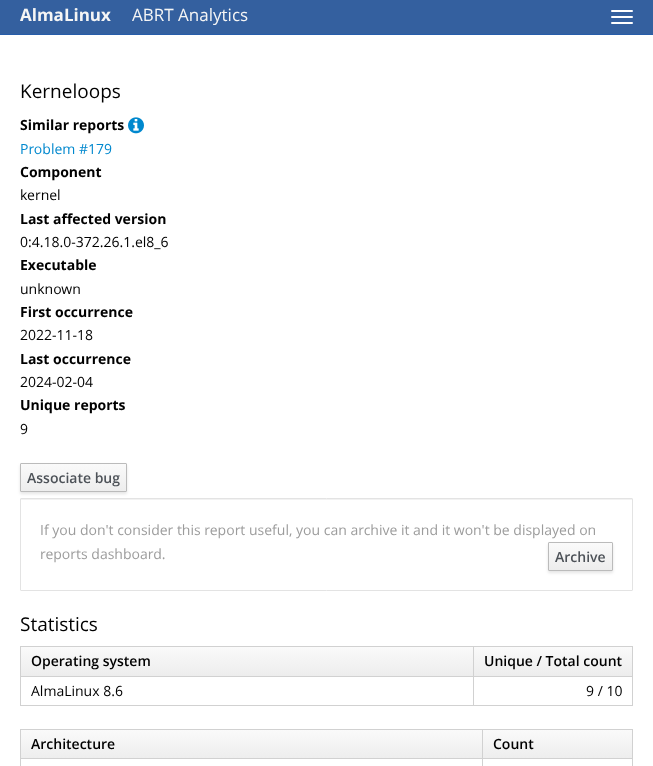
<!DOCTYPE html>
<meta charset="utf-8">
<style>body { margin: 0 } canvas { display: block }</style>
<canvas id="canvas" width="653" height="766"></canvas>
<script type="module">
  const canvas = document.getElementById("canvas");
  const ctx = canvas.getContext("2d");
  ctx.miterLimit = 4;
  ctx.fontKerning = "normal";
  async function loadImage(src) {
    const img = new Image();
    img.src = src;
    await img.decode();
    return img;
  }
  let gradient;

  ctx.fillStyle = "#ffffff";
  ctx.fillRect(0, 0, 653, 766);
  ctx.fillStyle = "#34609f";
  ctx.fillRect(0, 0, 653, 34);
  ctx.fillStyle = "#275daa";
  ctx.fillRect(0, 34, 653, 1);
  ctx.font = "bold 17px Open Sans";
  ctx.fillStyle = "#f5f5f5";
  ctx.fillText("AlmaLinux", 20, 21);
  ctx.font = "17px Open Sans";
  ctx.fillText("ABRT Analytics", 132, 21);
  ctx.fillStyle = "#ffffff";
  ctx.beginPath();
  ctx.roundRect(611, 10, 22, 2, 1);
  ctx.fill();
  ctx.beginPath();
  ctx.roundRect(611, 16, 22, 2, 1);
  ctx.fill();
  ctx.beginPath();
  ctx.roundRect(611, 22, 22, 2, 1);
  ctx.fill();
  ctx.font = "19px Open Sans";
  ctx.fillStyle = "#000000";
  ctx.fillText("Kerneloops", 20, 98);
  ctx.font = "bold 14px Open Sans";
  ctx.fillText("Similar reports", 20, 130);
  ctx.drawImage(await loadImage("img1.png"), 128, 117, 16, 17);
  ctx.font = "14px Open Sans";
  ctx.fillStyle = "#0088ce";
  ctx.fillText("Problem #179", 20, 154);
  ctx.font = "bold 14px Open Sans";
  ctx.fillStyle = "#000000";
  ctx.fillText("Component", 20, 177);
  ctx.font = "14px Open Sans";
  ctx.fillText("kernel", 20, 200);
  ctx.font = "bold 14px Open Sans";
  ctx.fillText("Last affected version", 20, 224);
  ctx.font = "14px Open Sans";
  ctx.fillText("0:4.18.0-372.26.1.el8_6", 20, 247);
  ctx.font = "bold 14px Open Sans";
  ctx.fillText("Executable", 20, 270);
  ctx.font = "14px Open Sans";
  ctx.fillText("unknown", 20, 294);
  ctx.font = "bold 14px Open Sans";
  ctx.fillText("First occurrence", 20, 317);
  ctx.font = "14px Open Sans";
  ctx.fillText("2022-11-18", 20, 340);
  ctx.font = "bold 14px Open Sans";
  ctx.fillText("Last occurrence", 20, 364);
  ctx.font = "14px Open Sans";
  ctx.fillText("2024-02-04", 20, 387);
  ctx.font = "bold 14px Open Sans";
  ctx.fillText("Unique reports", 20, 410);
  ctx.font = "14px Open Sans";
  ctx.fillText("9", 20, 434);
  ctx.fillStyle = "rgba(3, 3, 3, 0.1)";
  ctx.filter = "blur(1.5px)";
  ctx.beginPath();
  ctx.roundRect(20, 465, 107, 29, 1);
  ctx.fill();
  ctx.filter = "none";
  gradient = ctx.createLinearGradient(74, 464, 74, 491);
  gradient.addColorStop(0, "#fafafa");
  gradient.addColorStop(1, "#ededed");
  ctx.fillStyle = gradient;
  ctx.fillRect(21, 464, 105, 27);
  ctx.beginPath();
  ctx.roundRect(20.5, 463.5, 106, 28, 0.5);
  ctx.strokeStyle = "#bbbbbb";
  ctx.stroke();
  ctx.font = "600 14px Open Sans";
  ctx.fillStyle = "#4d5258";
  ctx.fillText("Associate bug", 27, 483);
  ctx.fillStyle = "#f2f2f2";
  ctx.fillRect(21, 499, 611, 1);
  ctx.beginPath();
  ctx.roundRect(20.5, 498.5, 612, 92, 0.5);
  ctx.strokeStyle = "#e3e3e3";
  ctx.stroke();
  ctx.fillStyle = "rgba(3, 3, 3, 0.1)";
  ctx.filter = "blur(1.5px)";
  ctx.beginPath();
  ctx.roundRect(548, 544, 65, 29, 1);
  ctx.fill();
  ctx.filter = "none";
  ctx.font = "14px Open Sans";
  ctx.fillStyle = "#9c9c9c";
  ctx.fillText("If you don't consider this report useful, you can archive it and it won't be displayed on", 40, 535);
  ctx.fillText("reports dashboard.", 40, 559);
  gradient = ctx.createLinearGradient(581, 543, 581, 570);
  gradient.addColorStop(0, "#fafafa");
  gradient.addColorStop(1, "#ededed");
  ctx.fillStyle = gradient;
  ctx.fillRect(549, 543, 63, 27);
  ctx.beginPath();
  ctx.roundRect(548.5, 542.5, 64, 28, 0.5);
  ctx.strokeStyle = "#bbbbbb";
  ctx.stroke();
  ctx.font = "600 14px Open Sans";
  ctx.fillStyle = "#4d5258";
  ctx.fillText("Archive", 555, 562);
  ctx.font = "19px Open Sans";
  ctx.fillStyle = "#000000";
  ctx.fillText("Statistics", 20, 631);
  ctx.fillStyle = "#d1d1d1";
  ctx.fillRect(20, 646, 613, 1);
  ctx.fillRect(632, 646, 1, 60);
  ctx.fillRect(20, 705, 613, 1);
  ctx.fillRect(20, 646, 1, 60);
  gradient = ctx.createLinearGradient(327, 647, 327, 676);
  gradient.addColorStop(0, "#fafafa");
  gradient.addColorStop(1, "#ededed");
  ctx.fillStyle = gradient;
  ctx.fillRect(21, 647, 611, 29);
  ctx.font = "600 14px Open Sans";
  ctx.fillStyle = "#000000";
  ctx.fillText("Operating system", 31, 666);
  ctx.fillStyle = "#d1d1d1";
  ctx.fillRect(473, 676, 160, 1);
  ctx.fillRect(473, 676, 1, 30);
  ctx.fillRect(20, 676, 454, 1);
  ctx.fillRect(473, 646, 1, 31);
  ctx.fillStyle = "#000000";
  ctx.fillText("Unique / Total count", 484, 666);
  ctx.font = "14px Open Sans";
  ctx.fillText("AlmaLinux 8.6", 31, 696);
  ctx.fillText("9 / 10", 586, 696);
  ctx.fillStyle = "#d1d1d1";
  ctx.fillRect(20, 729, 613, 1);
  ctx.fillRect(632, 729, 1, 37);
  ctx.fillRect(20, 729, 1, 37);
  gradient = ctx.createLinearGradient(327, 730, 327, 759);
  gradient.addColorStop(0, "#fafafa");
  gradient.addColorStop(1, "#ededed");
  ctx.fillStyle = gradient;
  ctx.fillRect(21, 730, 611, 28);
  ctx.font = "600 14px Open Sans";
  ctx.fillStyle = "#000000";
  ctx.fillText("Architecture", 31, 749);
  ctx.fillStyle = "#d1d1d1";
  ctx.fillRect(482, 758, 151, 1);
  ctx.fillRect(482, 758, 1, 8);
  ctx.fillRect(20, 758, 463, 1);
  ctx.fillRect(482, 729, 1, 30);
  ctx.fillStyle = "#000000";
  ctx.fillText("Count", 493, 749);
</script>
